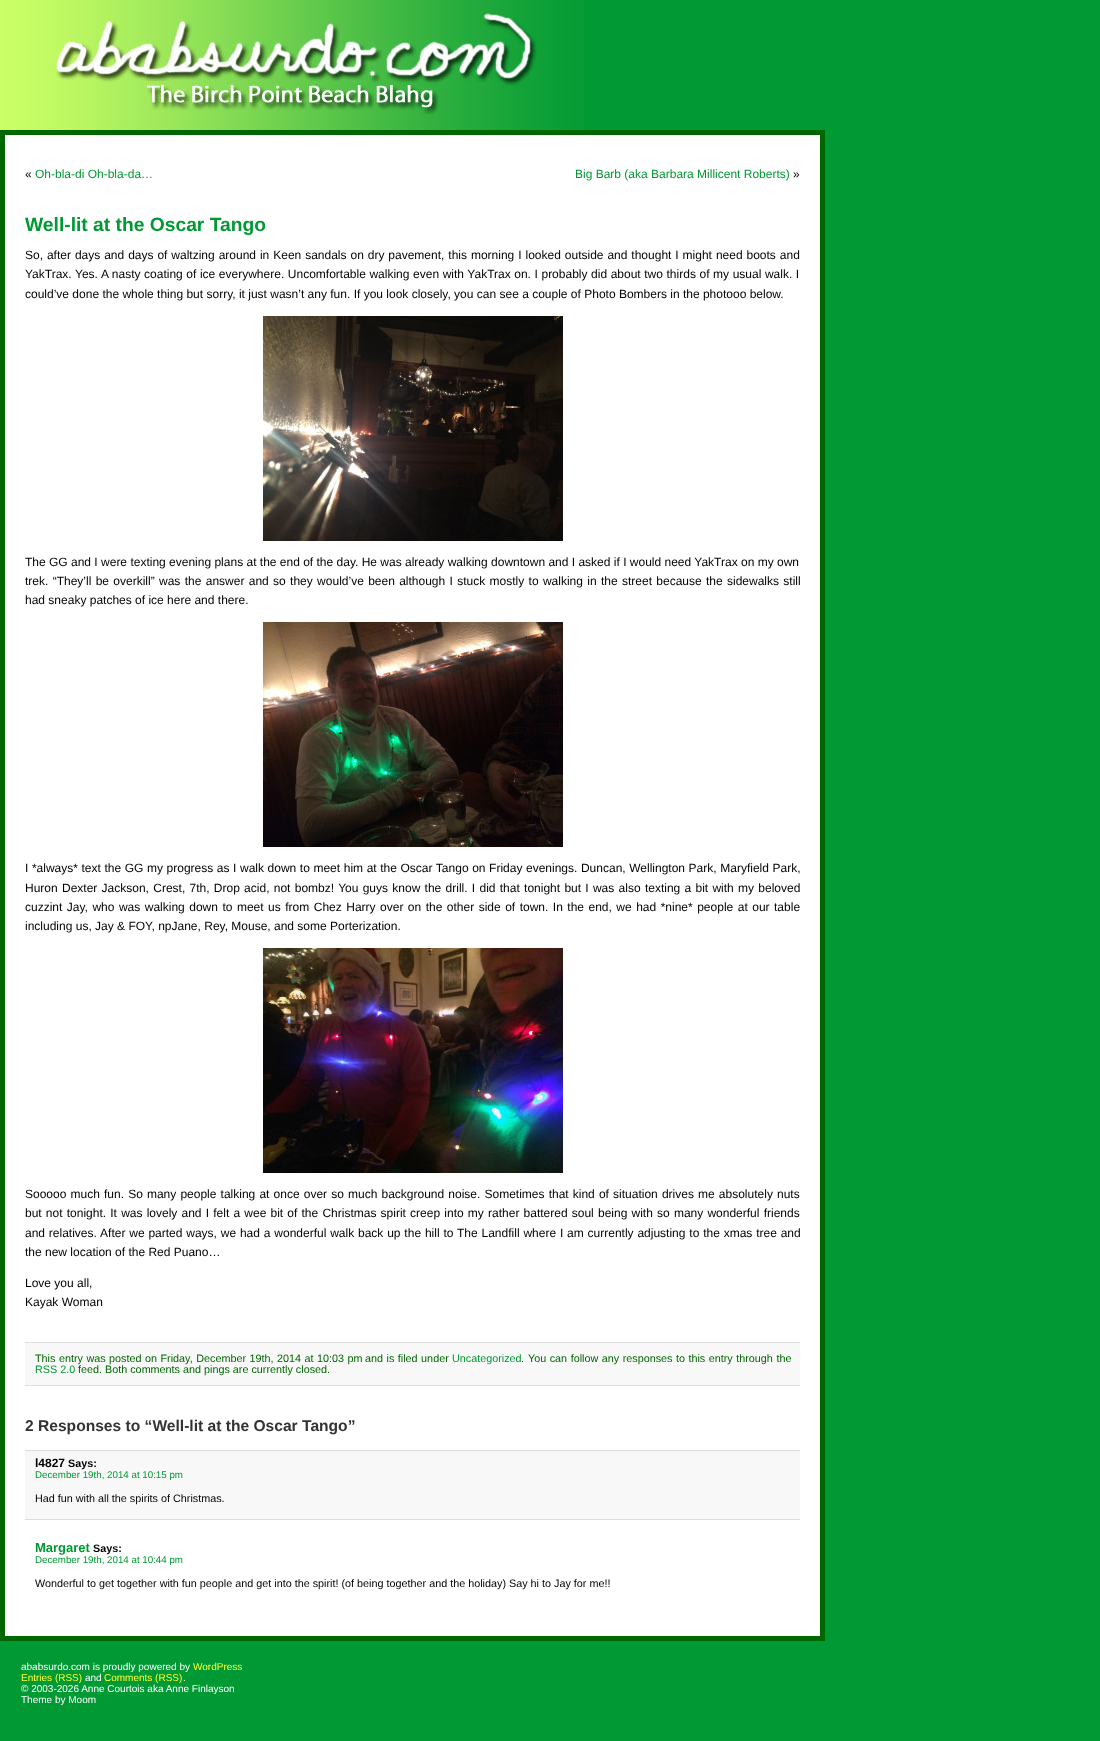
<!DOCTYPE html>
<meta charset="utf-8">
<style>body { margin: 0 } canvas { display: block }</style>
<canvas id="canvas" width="1100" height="1741"></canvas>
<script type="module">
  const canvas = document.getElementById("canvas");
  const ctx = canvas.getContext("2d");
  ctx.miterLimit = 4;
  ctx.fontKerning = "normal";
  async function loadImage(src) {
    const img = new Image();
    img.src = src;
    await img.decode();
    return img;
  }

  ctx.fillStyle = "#009933";
  ctx.fillRect(0, 0, 1100, 1741);
  ctx.drawImage(await loadImage("img1.png"), 0, 0, 584, 130);
  ctx.fillStyle = "#ffffff";
  ctx.beginPath();
  ctx.rect(2.5, 132.5, 820, 1506);
  ctx.fill();
  ctx.strokeStyle = "#006600";
  ctx.lineWidth = 5;
  ctx.stroke();
  ctx.font = "12px Liberation Sans";
  ctx.fillStyle = "#000000";
  ctx.fillText("«", 25, 178);
  ctx.fillStyle = "#009933";
  ctx.fillText("Oh-bla-di Oh-bla-da…", 35, 178);
  ctx.fillText("Big Barb (aka Barbara Millicent Roberts)", 575, 178);
  ctx.fillStyle = "#000000";
  ctx.fillText("»", 793, 178);
  ctx.font = "bold 19.25px Liberation Sans";
  ctx.fillStyle = "#009933";
  ctx.fillText("Well-lit at the Oscar Tango", 25, 231);
  ctx.wordSpacing = "0.6px";
  ctx.font = "12px Liberation Sans";
  ctx.fillStyle = "#000000";
  ctx.fillText("So, after days and days of waltzing around in Keen sandals on dry pavement, this morning I looked outside and thought I might need boots and", 25, 259);
  ctx.wordSpacing = "0.25px";
  ctx.fillText("YakTrax. Yes. A nasty coating of ice everywhere. Uncomfortable walking even with YakTrax on. I probably did about two thirds of my usual walk. I", 25, 278);
  ctx.wordSpacing = "0px";
  ctx.fillText("could’ve done the whole thing but sorry, it just wasn’t any fun. If you look closely, you can see a couple of Photo Bombers in the photooo below.", 25, 298);
  ctx.drawImage(await loadImage("img2.png"), 263, 316, 300, 225);
  ctx.fillText("The GG and I were texting evening plans at the end of the day. He was already walking downtown and I asked if I would need YakTrax on my own", 25, 566);
  ctx.wordSpacing = "1px";
  ctx.fillText("trek. “They’ll be overkill” was the answer and so they would’ve been although I stuck mostly to walking in the street because the sidewalks still", 25, 585);
  ctx.wordSpacing = "0px";
  ctx.fillText("had sneaky patches of ice here and there.", 25, 604);
  ctx.drawImage(await loadImage("img3.png"), 263, 622, 300, 225);
  ctx.wordSpacing = "0.25px";
  ctx.fillText("I *always* text the GG my progress as I walk down to meet him at the Oscar Tango on Friday evenings. Duncan, Wellington Park, Maryfield Park,", 25, 872);
  ctx.wordSpacing = "0.95px";
  ctx.fillText("Huron Dexter Jackson, Crest, 7th, Drop acid, not bombz! You guys know the drill. I did that tonight but I was also texting a bit with my beloved", 25, 892);
  ctx.wordSpacing = "1.15px";
  ctx.fillText("cuzzint Jay, who was walking down to meet us from Chez Harry over on the other side of town. In the end, we had *nine* people at our table", 25, 911);
  ctx.wordSpacing = "0px";
  ctx.fillText("including us, Jay & FOY, npJane, Rey, Mouse, and some Porterization.", 25, 930);
  ctx.drawImage(await loadImage("img4.png"), 263, 948, 300, 225);
  ctx.wordSpacing = "0.8px";
  ctx.fillText("Sooooo much fun. So many people talking at once over so much background noise. Sometimes that kind of situation drives me absolutely nuts", 25, 1198);
  ctx.wordSpacing = "0.85px";
  ctx.fillText("but not tonight. It was lovely and I felt a wee bit of the Christmas spirit creep into my rather battered soul being with so many wonderful friends", 25, 1217);
  ctx.wordSpacing = "0.5px";
  ctx.fillText("and relatives. After we parted ways, we had a wonderful walk back up the hill to The Landfill where I am currently adjusting to the xmas tree and", 25, 1237);
  ctx.wordSpacing = "0px";
  ctx.fillText("the new location of the Red Puano…", 25, 1256);
  ctx.fillText("Love you all,", 25, 1287);
  ctx.fillText("Kayak Woman", 25, 1306);
  ctx.fillStyle = "#f8f8f8";
  ctx.fillRect(25, 1343, 775, 42);
  ctx.fillStyle = "#dddddd";
  ctx.fillRect(25, 1342, 775, 1);
  ctx.fillRect(25, 1385, 775, 1);
  ctx.wordSpacing = "0.5px";
  ctx.font = "10.8px Liberation Sans";
  ctx.fillStyle = "#006600";
  ctx.fillText("This entry was posted", 35, 1362);
  ctx.fillText("on Friday, December 19th, 2014 at 10:03 pm", 145, 1362);
  ctx.fillText("and is filed under", 365, 1362);
  ctx.wordSpacing = "0px";
  ctx.fillStyle = "#009933";
  ctx.fillText("Uncategorized", 452, 1362);
  ctx.fillStyle = "#006600";
  ctx.fillText(".", 521, 1362);
  ctx.wordSpacing = "0.5px";
  ctx.fillText("You can follow any responses to this entry through the", 528, 1362);
  ctx.wordSpacing = "0px";
  ctx.fillStyle = "#009933";
  ctx.fillText("RSS 2.0", 35, 1373);
  ctx.fillStyle = "#006600";
  ctx.fillText("feed. Both comments and pings are currently closed.", 78, 1373);
  ctx.font = "bold 15.6px Liberation Sans";
  ctx.fillStyle = "#333333";
  ctx.fillText("2 Responses to “Well-lit at the Oscar Tango”", 25, 1431);
  ctx.fillStyle = "#f8f8f8";
  ctx.fillRect(25, 1451, 775, 68);
  ctx.fillStyle = "#dddddd";
  ctx.fillRect(25, 1450, 775, 1);
  ctx.fillRect(25, 1519, 775, 1);
  ctx.font = "bold 12px Liberation Sans";
  ctx.fillStyle = "#000000";
  ctx.fillText("l4827", 35, 1467);
  ctx.font = "bold 10.8px Liberation Sans";
  ctx.fillText("Says:", 68, 1467);
  ctx.font = "9.75px Liberation Sans";
  ctx.fillStyle = "#009933";
  ctx.fillText("December 19th, 2014 at 10:15 pm", 35, 1478);
  ctx.font = "10.8px Liberation Sans";
  ctx.fillStyle = "#000000";
  ctx.fillText("Had fun with all the spirits of Christmas.", 35, 1502);
  ctx.font = "bold 13px Liberation Sans";
  ctx.fillStyle = "#009933";
  ctx.fillText("Margaret", 35, 1552);
  ctx.font = "bold 10.8px Liberation Sans";
  ctx.fillStyle = "#000000";
  ctx.fillText("Says:", 93, 1552);
  ctx.font = "9.75px Liberation Sans";
  ctx.fillStyle = "#009933";
  ctx.fillText("December 19th, 2014 at 10:44 pm", 35, 1563);
  ctx.font = "10.8px Liberation Sans";
  ctx.fillStyle = "#000000";
  ctx.fillText("Wonderful to get together with fun people and get into the spirit! (of being together and the holiday) Say hi to Jay for me!!", 35, 1587);
  ctx.font = "10px Liberation Sans";
  ctx.fillStyle = "#ffffff";
  ctx.fillText("ababsurdo.com is proudly powered by", 21, 1670);
  ctx.fillStyle = "#ffff33";
  ctx.fillText("WordPress", 193, 1670);
  ctx.fillText("Entries (RSS)", 21, 1681);
  ctx.fillStyle = "#ffffff";
  ctx.fillText("and", 85, 1681);
  ctx.fillStyle = "#ffff33";
  ctx.fillText("Comments (RSS)", 104, 1681);
  ctx.fillStyle = "#ffffff";
  ctx.fillText(".", 183, 1681);
  ctx.fillText("© 2003-2026 Anne Courtois aka Anne Finlayson", 21, 1692);
  ctx.fillText("Theme by Moom", 21, 1703);
</script>
